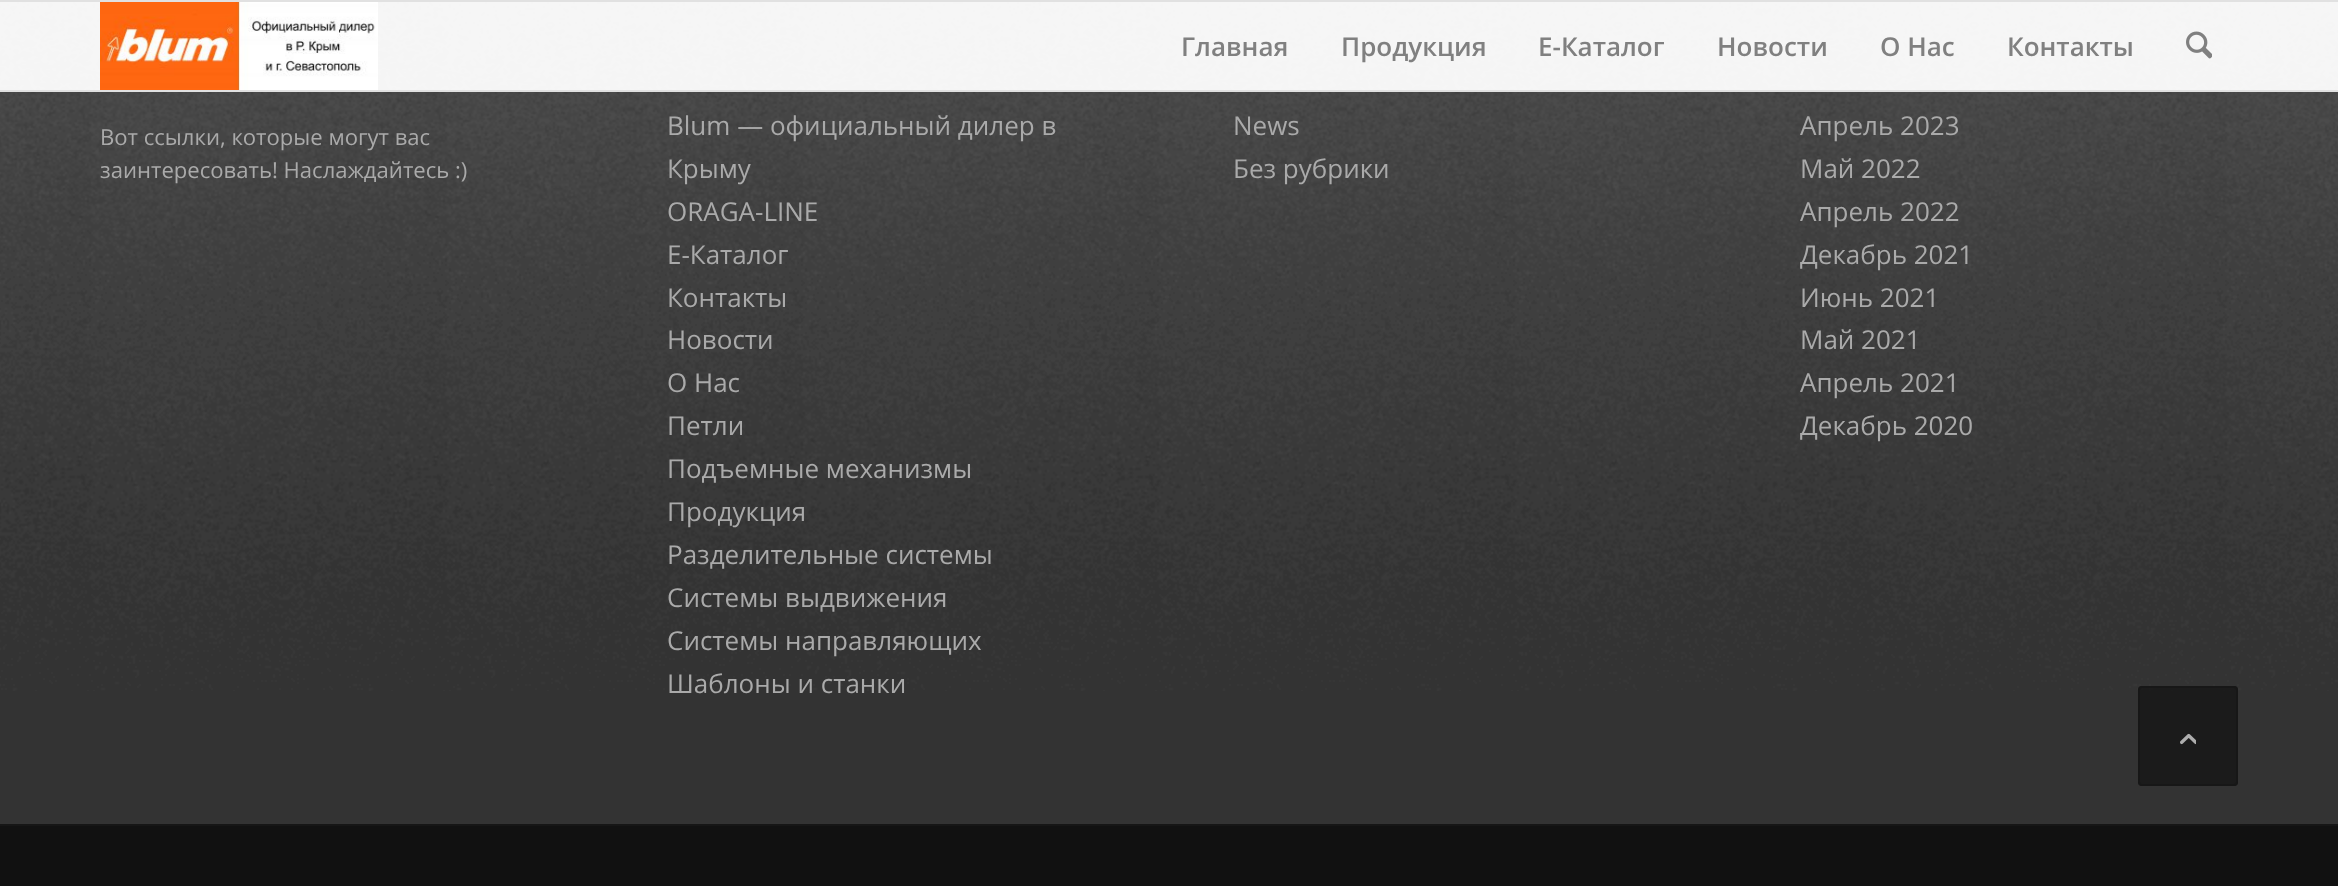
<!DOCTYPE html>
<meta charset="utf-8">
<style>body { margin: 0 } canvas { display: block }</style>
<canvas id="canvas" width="2338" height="886"></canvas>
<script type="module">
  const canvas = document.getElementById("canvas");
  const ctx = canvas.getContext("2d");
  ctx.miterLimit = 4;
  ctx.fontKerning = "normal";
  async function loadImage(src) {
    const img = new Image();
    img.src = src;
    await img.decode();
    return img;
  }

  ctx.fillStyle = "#333333";
  ctx.fillRect(0, 0, 2338, 886);
  ctx.drawImage(await loadImage("img3.png"), 0, 2, 2338, 689);
  ctx.fillStyle = "rgba(255, 255, 255, 0.95)";
  ctx.fillRect(0, 2, 2338, 88);
  ctx.fillStyle = "#e1e1e1";
  ctx.fillRect(0, 0, 2338, 2);
  ctx.fillRect(0, 90, 2338, 2);
  ctx.drawImage(await loadImage("img1.png"), 100, 2, 278, 88);
  ctx.font = "600 26px Open Sans";
  ctx.fillStyle = "#808080";
  ctx.fillText("Главная", 1181, 56);
  ctx.fillText("Продукция", 1341, 56);
  ctx.fillText("Е-Каталог", 1538, 56);
  ctx.fillText("Новости", 1717, 56);
  ctx.fillText("О Нас", 1880, 56);
  ctx.fillText("Контакты", 2007, 56);
  ctx.drawImage(await loadImage("img2.png"), 2186, 31, 26, 28);
  ctx.font = "22.1px Open Sans";
  ctx.fillStyle = "#aaaaaa";
  ctx.fillText("Вот ссылки, которые могут вас", 100, 145);
  ctx.fillText("заинтересовать! Наслаждайтесь :)", 100, 178);
  ctx.font = "26px Open Sans";
  ctx.fillText("Blum — официальный дилер в", 667, 135);
  ctx.fillText("Крыму", 667, 178);
  ctx.fillText("ORAGA-LINE", 667, 221);
  ctx.fillText("Е-Каталог", 667, 264);
  ctx.fillText("Контакты", 667, 307);
  ctx.fillText("Новости", 667, 349);
  ctx.fillText("О Нас", 667, 392);
  ctx.fillText("Петли", 667, 435);
  ctx.fillText("Подъемные механизмы", 667, 478);
  ctx.fillText("Продукция", 667, 521);
  ctx.fillText("Разделительные системы", 667, 564);
  ctx.fillText("Системы выдвижения", 667, 607);
  ctx.fillText("Системы направляющих", 667, 650);
  ctx.fillText("Шаблоны и станки", 667, 693);
  ctx.fillText("News", 1233, 135);
  ctx.fillText("Без рубрики", 1233, 178);
  ctx.fillText("Апрель 2023", 1800, 135);
  ctx.fillText("Май 2022", 1800, 178);
  ctx.fillText("Апрель 2022", 1800, 221);
  ctx.save();
  ctx.beginPath();
  ctx.rect(1800, 34, 438, 414);
  ctx.clip();
  ctx.fillText("Декабрь 2021", 1800, 264);
  ctx.restore();
  ctx.fillText("Июнь 2021", 1800, 307);
  ctx.fillText("Май 2021", 1800, 349);
  ctx.fillText("Апрель 2021", 1800, 392);
  ctx.save();
  ctx.beginPath();
  ctx.rect(1800, 34, 438, 414);
  ctx.clip();
  ctx.fillText("Декабрь 2020", 1800, 435);
  ctx.restore();
  ctx.fillStyle = "#111111";
  ctx.fillRect(0, 826, 2338, 60);
  ctx.fillStyle = "#161616";
  ctx.fillRect(0, 824, 2338, 2);
  ctx.fillStyle = "rgba(17, 17, 17, 0.7)";
  ctx.beginPath();
  ctx.roundRect(2138, 686, 100, 100, 4);
  ctx.fill();
  ctx.beginPath();
  ctx.roundRect(2139, 687, 98, 98, 3);
  ctx.strokeStyle = "rgba(22, 22, 22, 0.7)";
  ctx.lineWidth = 2;
  ctx.stroke();
  ctx.drawImage(await loadImage("img4.png"), 2180, 733, 16, 12);
</script>
